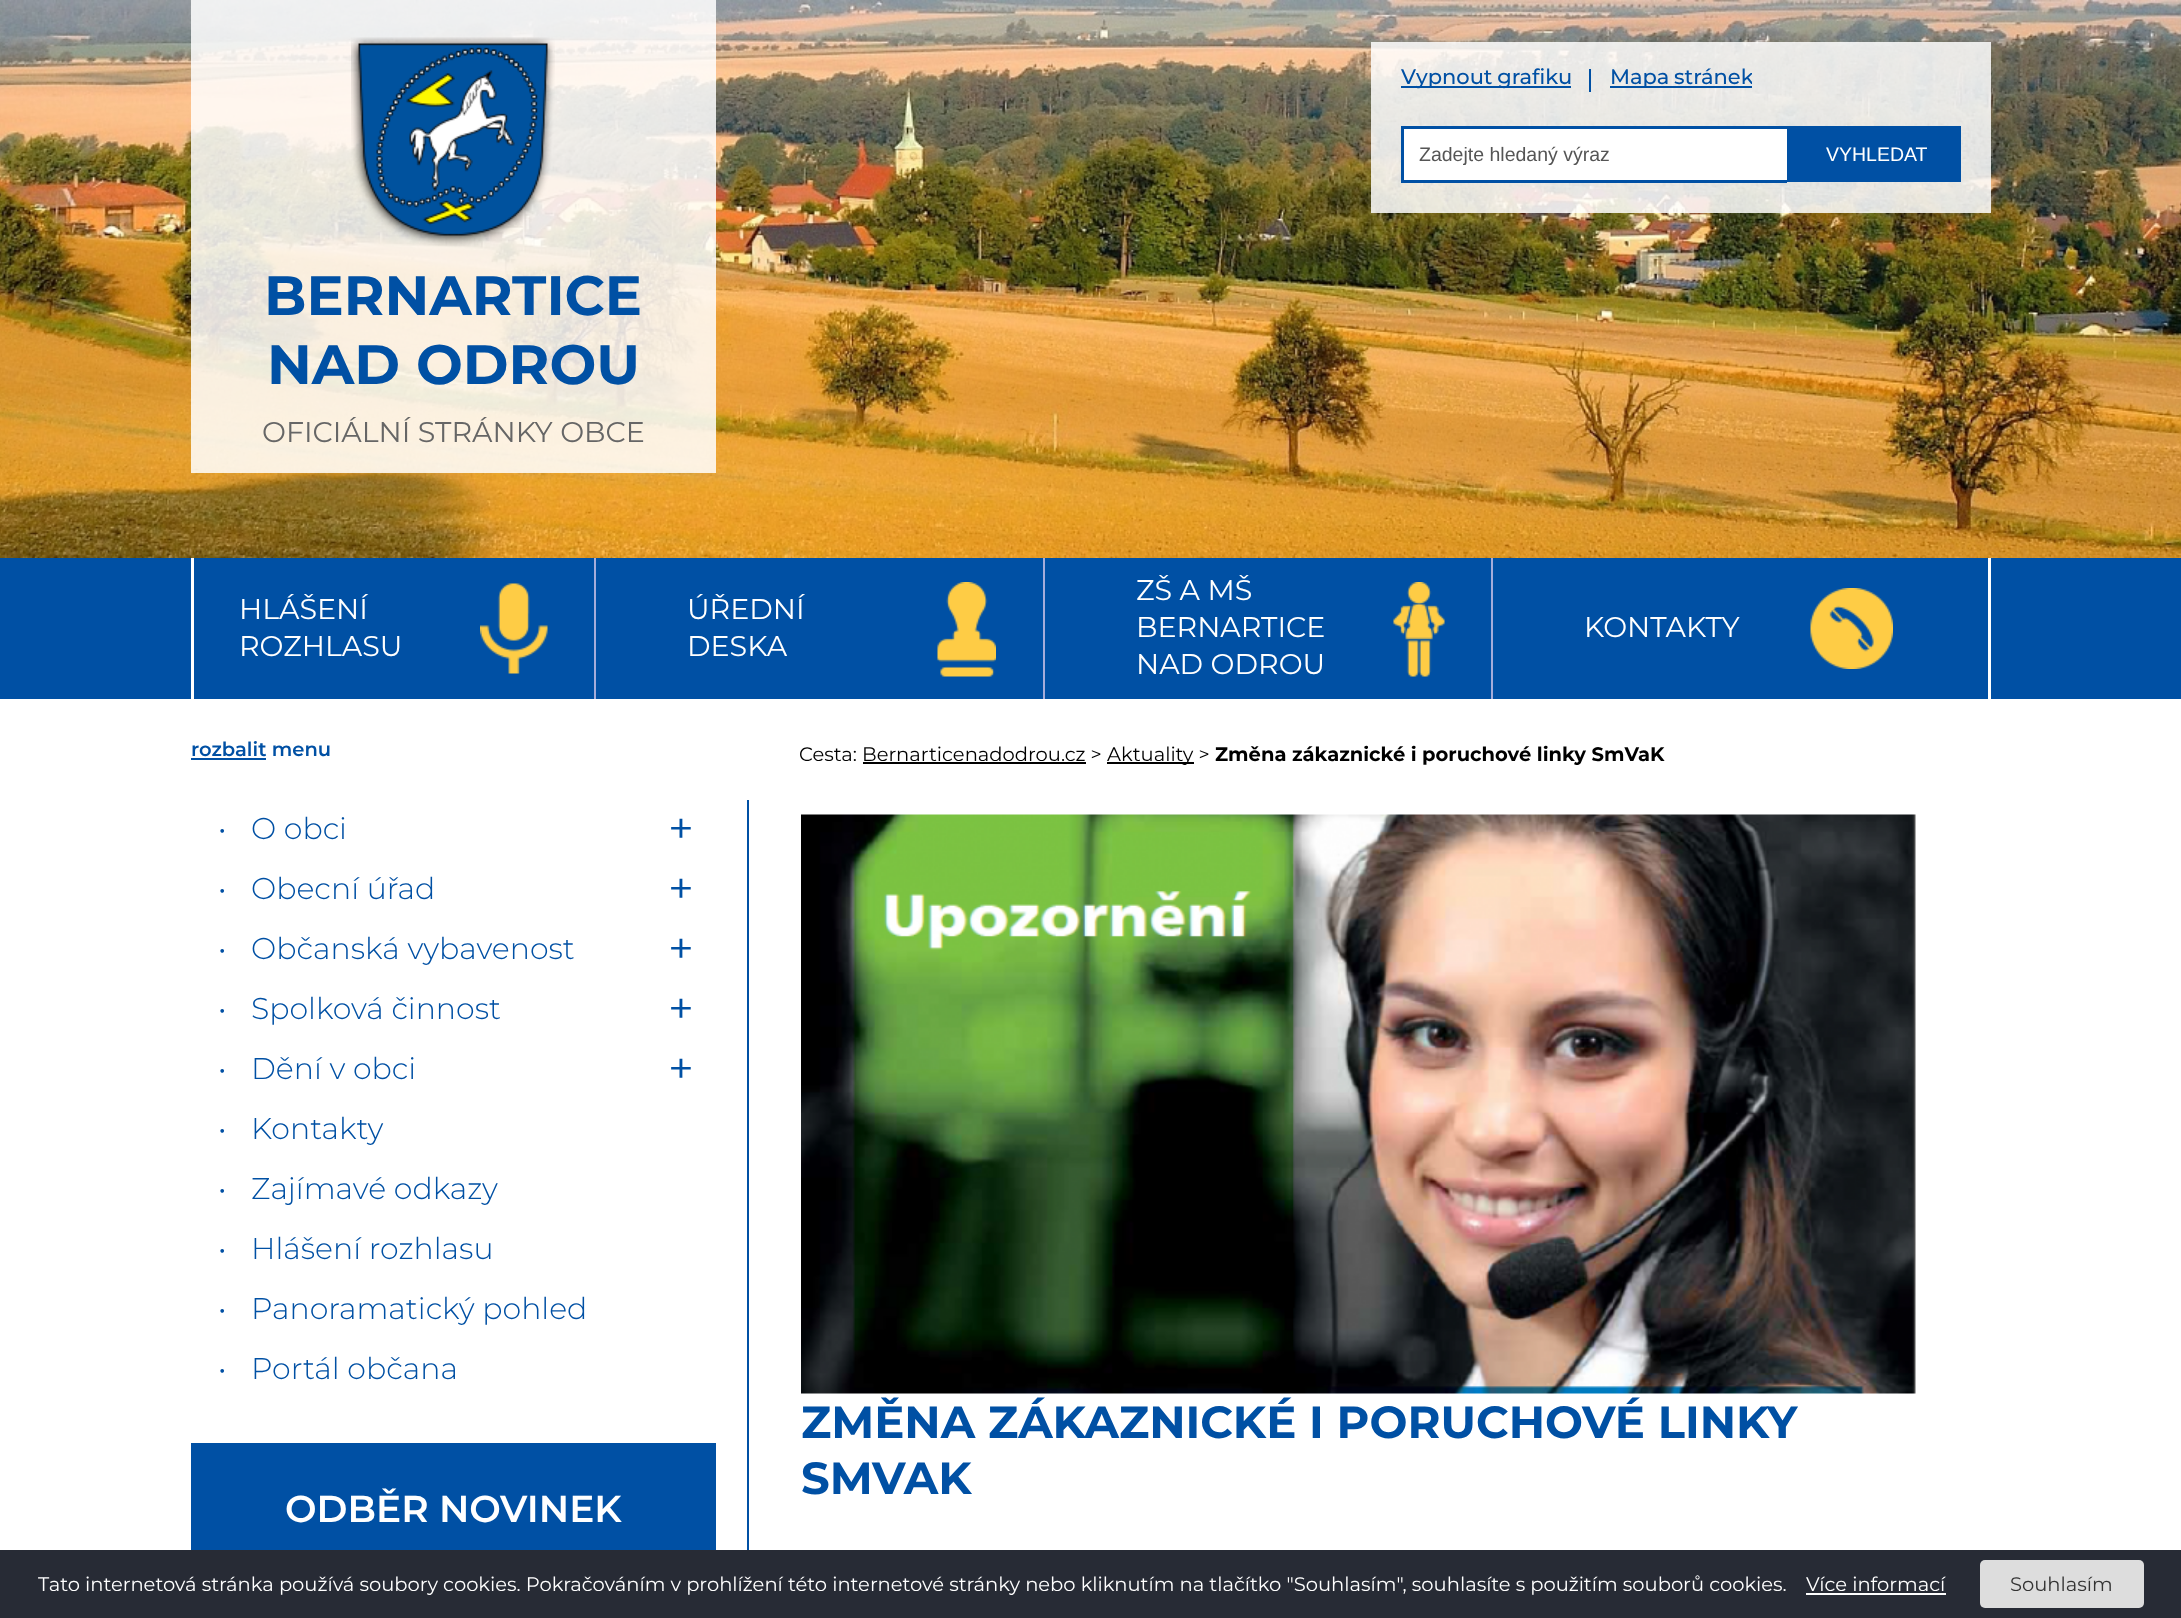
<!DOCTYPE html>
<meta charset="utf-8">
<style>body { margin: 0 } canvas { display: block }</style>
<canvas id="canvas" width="2181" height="1618"></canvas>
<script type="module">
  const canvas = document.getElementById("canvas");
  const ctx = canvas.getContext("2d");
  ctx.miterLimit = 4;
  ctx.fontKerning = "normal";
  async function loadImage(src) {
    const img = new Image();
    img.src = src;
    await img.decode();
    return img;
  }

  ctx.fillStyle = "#ffffff";
  ctx.fillRect(0, 0, 2181, 1618);
  ctx.fillStyle = "#0050a4";
  ctx.fillRect(0, 558, 2181, 141);
  ctx.drawImage(await loadImage("img1.png"), 0, 0, 2181, 558);
  ctx.fillStyle = "rgba(255, 255, 255, 0.85)";
  ctx.fillRect(1371, 42, 620, 171);
  ctx.fillStyle = "#0050a4";
  ctx.fillRect(1401, 86, 170, 2);
  ctx.wordSpacing = "-1px";
  ctx.font = "500 21px Montserrat";
  ctx.fillText("Vypnout grafiku", 1401, 84);
  ctx.fillRect(1589, 69, 2, 23);
  ctx.fillRect(1610, 86, 142, 2);
  ctx.save();
  ctx.beginPath();
  ctx.rect(1610, 65, 142, 27);
  ctx.clip();
  ctx.fillText("Mapa stránek", 1610, 84);
  ctx.restore();
  ctx.fillStyle = "#ffffff";
  ctx.fillRect(1404, 129, 383, 51);
  ctx.fillStyle = "#0050a4";
  ctx.fillRect(1401, 126, 386, 3);
  ctx.fillRect(1401, 180, 386, 3);
  ctx.fillRect(1401, 126, 3, 57);
  ctx.wordSpacing = "0px";
  ctx.font = "19.5px Liberation Sans";
  ctx.fillStyle = "#555555";
  ctx.fillText("Zadejte hledaný výraz", 1419, 161);
  ctx.fillStyle = "#0050a4";
  ctx.fillRect(1787, 126, 174, 56);
  ctx.fillStyle = "#ffffff";
  ctx.fillText("VYHLEDAT", 1826, 161);
  ctx.fillStyle = "rgba(255, 255, 255, 0.85)";
  ctx.fillRect(191, 0, 525, 473);
  ctx.drawImage(await loadImage("img2.png"), 351, 37, 204, 209);
  ctx.font = "bold 55.5px Montserrat";
  ctx.fillStyle = "#0050a4";
  ctx.fillText("BERNARTICE", 264, 315);
  ctx.fillText("NAD ODROU", 267, 384);
  ctx.font = "28.5px Montserrat";
  ctx.fillStyle = "#666666";
  ctx.fillText("OFICIÁLNÍ STRÁNKY OBCE", 262, 442);
  ctx.fillStyle = "#ffffff";
  ctx.fillRect(1988, 558, 3, 141);
  ctx.fillRect(191, 558, 3, 141);
  ctx.drawImage(await loadImage("img3.png"), 480, 583, 68, 91);
  ctx.fillText("HLÁŠENÍ", 239, 619);
  ctx.fillText("ROZHLASU", 239, 656);
  ctx.fillStyle = "#a5acda";
  ctx.fillRect(594, 558, 2, 141);
  ctx.drawImage(await loadImage("img4.png"), 937, 582, 59, 95);
  ctx.fillStyle = "#ffffff";
  ctx.fillText("ÚŘEDNÍ", 687, 619);
  ctx.fillText("DESKA", 687, 656);
  ctx.fillStyle = "#a5acda";
  ctx.fillRect(1043, 558, 2, 141);
  ctx.drawImage(await loadImage("img5.png"), 1393, 582, 52, 95);
  ctx.fillStyle = "#ffffff";
  ctx.fillText("ZŠ A MŠ", 1136, 600);
  ctx.fillText("BERNARTICE", 1136, 637);
  ctx.fillText("NAD ODROU", 1136, 674);
  ctx.fillStyle = "#a5acda";
  ctx.fillRect(1491, 558, 2, 141);
  ctx.drawImage(await loadImage("img6.png"), 1810, 588, 83, 81);
  ctx.fillStyle = "#ffffff";
  ctx.fillText("KONTAKTY", 1584, 637);
  ctx.font = "600 19.5px Montserrat";
  ctx.fillStyle = "#0050a4";
  ctx.fillText("rozbalit menu", 191, 756);
  ctx.fillRect(191, 758, 75, 2);
  ctx.font = "300 30px Montserrat";
  ctx.fillText("•", 218, 839);
  ctx.fillText("O obci", 251, 839);
  ctx.font = "45px Montserrat";
  ctx.fillText("+", 668, 844);
  ctx.font = "300 30px Montserrat";
  ctx.fillText("•", 218, 899);
  ctx.fillText("Obecní úřad", 251, 899);
  ctx.font = "45px Montserrat";
  ctx.fillText("+", 668, 904);
  ctx.font = "300 30px Montserrat";
  ctx.fillText("•", 218, 959);
  ctx.fillText("Občanská vybavenost", 251, 959);
  ctx.font = "45px Montserrat";
  ctx.fillText("+", 668, 964);
  ctx.font = "300 30px Montserrat";
  ctx.fillText("•", 218, 1019);
  ctx.fillText("Spolková činnost", 251, 1019);
  ctx.font = "45px Montserrat";
  ctx.fillText("+", 668, 1024);
  ctx.font = "300 30px Montserrat";
  ctx.fillText("•", 218, 1079);
  ctx.fillText("Dění v obci", 251, 1079);
  ctx.font = "45px Montserrat";
  ctx.fillText("+", 668, 1084);
  ctx.font = "300 30px Montserrat";
  ctx.fillText("•", 218, 1139);
  ctx.fillText("Kontakty", 251, 1139);
  ctx.fillText("•", 218, 1199);
  ctx.fillText("Zajímavé odkazy", 251, 1199);
  ctx.fillText("•", 218, 1259);
  ctx.fillText("Hlášení rozhlasu", 251, 1259);
  ctx.fillText("•", 218, 1319);
  ctx.fillText("Panoramatický pohled", 251, 1319);
  ctx.fillText("•", 218, 1379);
  ctx.fillText("Portál občana", 251, 1379);
  ctx.fillRect(191, 1443, 525, 107);
  ctx.font = "600 37.5px Montserrat";
  ctx.fillStyle = "#ffffff";
  ctx.fillText("ODBĚR NOVINEK", 285, 1522);
  ctx.font = "19.5px Montserrat";
  ctx.fillStyle = "#000000";
  ctx.fillText("Cesta: Bernarticenadodrou.cz >", 799, 761);
  ctx.fillRect(1107, 762, 87, 2);
  ctx.fillText("Aktuality >", 1107, 761);
  ctx.font = "bold 19.5px Montserrat";
  ctx.fillText("Změna zákaznické i poruchové linky SmVaK", 1215, 761);
  ctx.fillRect(863, 762, 223, 2);
  ctx.fillStyle = "#0050a4";
  ctx.fillRect(747, 800, 2, 750);
  ctx.drawImage(await loadImage("img7.png"), 801, 814, 1115, 580);
  ctx.font = "bold 45px Montserrat";
  ctx.fillText("ZMĚNA ZÁKAZNICKÉ I PORUCHOVÉ LINKY", 801, 1438);
  ctx.fillText("SMVAK", 801, 1494);
  ctx.fillStyle = "#272b35";
  ctx.fillRect(0, 1550, 2181, 68);
  ctx.font = "19.5px Montserrat";
  ctx.fillStyle = "#ffffff";
  ctx.fillText("Tato internetová stránka používá soubory cookies. Pokračováním v prohlížení této internetové stránky nebo kliknutím na tlačítko \"Souhlasím\", souhlasíte s použitím souborů cookies.", 38, 1591);
  ctx.fillText("Více informací", 1806, 1591);
  ctx.fillRect(1806, 1593, 140, 2);
  ctx.fillStyle = "#dddddd";
  ctx.beginPath();
  ctx.roundRect(1980, 1560, 164, 48, 5);
  ctx.fill();
  ctx.fillStyle = "#333333";
  ctx.fillText("Souhlasím", 2010, 1591);
</script>
